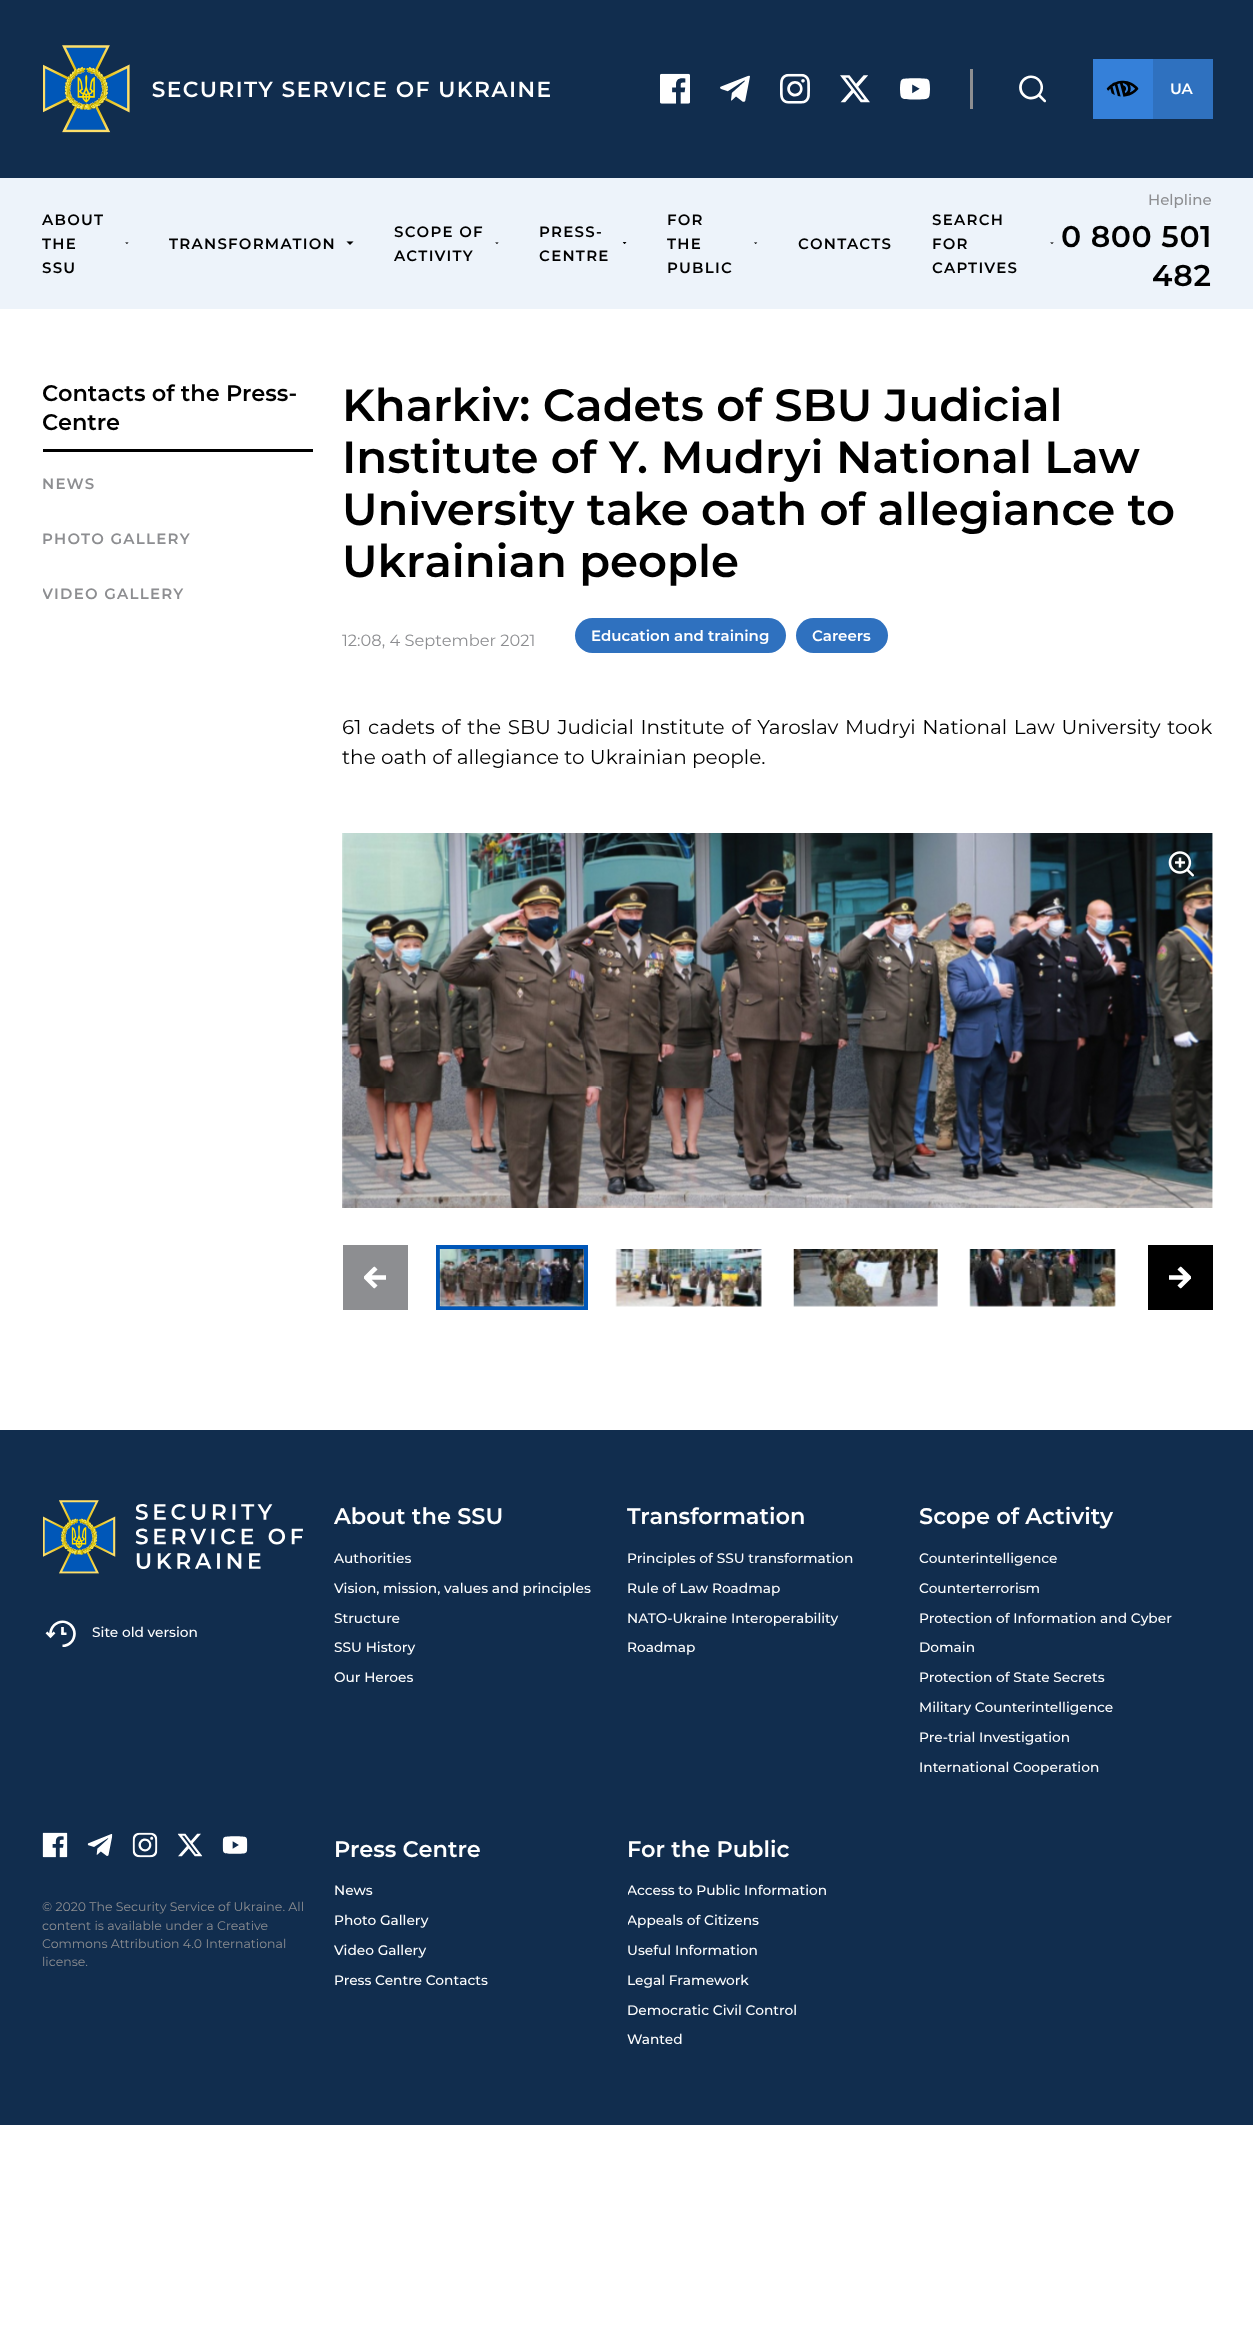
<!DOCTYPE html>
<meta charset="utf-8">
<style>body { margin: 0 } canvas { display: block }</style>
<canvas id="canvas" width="1253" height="2330"></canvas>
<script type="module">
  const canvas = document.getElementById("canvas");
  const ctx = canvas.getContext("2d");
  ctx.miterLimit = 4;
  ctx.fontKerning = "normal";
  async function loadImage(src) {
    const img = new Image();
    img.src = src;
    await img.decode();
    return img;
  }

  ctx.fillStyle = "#ffffff";
  ctx.fillRect(0, 0, 1253, 2330);
  ctx.fillStyle = "#112d4e";
  ctx.fillRect(0, 0, 1253, 178);
  ctx.drawImage(await loadImage("img1.png"), 43, 45, 507, 88);
  ctx.drawImage(await loadImage("img2.png"), 660, 73, 30, 31);
  ctx.drawImage(await loadImage("img3.png"), 720, 75, 30, 27);
  ctx.drawImage(await loadImage("img4.png"), 780, 73, 30, 31);
  ctx.drawImage(await loadImage("img5.png"), 840, 75, 30, 28);
  ctx.drawImage(await loadImage("img6.png"), 900, 78, 30, 22);
  ctx.fillStyle = "#8d8e91";
  ctx.fillRect(970, 69, 3, 40);
  ctx.drawImage(await loadImage("img7.png"), 1019, 75, 27, 28);
  ctx.fillStyle = "#3580d9";
  ctx.fillRect(1093, 59, 60, 60);
  ctx.drawImage(await loadImage("img8.png"), 1106, 80, 33, 17);
  ctx.fillStyle = "#2f71bf";
  ctx.fillRect(1153, 59, 60, 60);
  ctx.font = "600 15px Montserrat";
  ctx.fillStyle = "#ffffff";
  ctx.fillText("UA", 1170, 94);
  ctx.fillStyle = "#edf3fa";
  ctx.fillRect(0, 178, 1253, 131);
  ctx.letterSpacing = "1.25px";
  ctx.fillStyle = "#000000";
  ctx.fillText("ABOUT", 42, 225);
  ctx.fillText("THE", 42, 249);
  ctx.fillText("SSU", 42, 273);
  ctx.drawImage(await loadImage("img9.png"), 125, 242, 4, 2);
  ctx.fillText("TRANSFORMATION", 169, 249);
  ctx.drawImage(await loadImage("img10.png"), 346, 241, 8, 4);
  ctx.fillText("SCOPE OF", 394, 237);
  ctx.fillText("ACTIVITY", 394, 261);
  ctx.drawImage(await loadImage("img11.png"), 495, 242, 4, 2);
  ctx.fillText("PRESS-", 539, 237);
  ctx.fillText("CENTRE", 539, 261);
  ctx.drawImage(await loadImage("img12.png"), 622, 242, 5, 2);
  ctx.fillText("FOR", 667, 225);
  ctx.fillText("THE", 667, 249);
  ctx.fillText("PUBLIC", 667, 273);
  ctx.drawImage(await loadImage("img13.png"), 754, 242, 4, 2);
  ctx.fillText("CONTACTS", 798, 249);
  ctx.fillText("SEARCH", 932, 225);
  ctx.fillText("FOR", 932, 249);
  ctx.fillText("CAPTIVES", 932, 273);
  ctx.drawImage(await loadImage("img14.png"), 1050, 242, 4, 2);
  ctx.letterSpacing = "0px";
  ctx.font = "500 15px Montserrat";
  ctx.fillStyle = "#8d8e91";
  ctx.fillText("Helpline", 1148, 205);
  ctx.letterSpacing = "0.6px";
  ctx.font = "600 30px Montserrat";
  ctx.fillStyle = "#000000";
  ctx.fillText("0 800 501", 1061, 247);
  ctx.fillText("482", 1152, 286);
  ctx.fillRect(43, 449, 270, 3);
  ctx.letterSpacing = "0px";
  ctx.font = "600 22.5px Montserrat";
  ctx.fillText("Contacts of the Press-", 42, 401);
  ctx.fillText("Centre", 42, 430);
  ctx.letterSpacing = "1.25px";
  ctx.font = "600 15px Montserrat";
  ctx.fillStyle = "#8d8e91";
  ctx.fillText("NEWS", 42, 489);
  ctx.fillText("PHOTO GALLERY", 42, 544);
  ctx.save();
  ctx.beginPath();
  ctx.rect(43, 461, 270, 165);
  ctx.clip();
  ctx.fillText("VIDEO GALLERY", 42, 599);
  ctx.restore();
  ctx.letterSpacing = "0px";
  ctx.font = "600 45px Montserrat";
  ctx.fillStyle = "#000000";
  ctx.fillText("Kharkiv: Cadets of SBU Judicial", 342, 421);
  ctx.fillText("Institute of Y. Mudryi National Law", 342, 473);
  ctx.fillText("University take oath of allegiance to", 342, 525);
  ctx.fillText("Ukrainian people", 342, 577);
  ctx.font = "16.25px Montserrat";
  ctx.fillStyle = "#8d8e91";
  ctx.fillText("12:08, 4 September 2021", 342, 646);
  ctx.fillStyle = "#2f71bf";
  ctx.beginPath();
  ctx.roundRect(575, 618, 211, 35, 17.5);
  ctx.fill();
  ctx.font = "600 15px Montserrat";
  ctx.fillStyle = "#ffffff";
  ctx.fillText("Education and training", 591, 641);
  ctx.fillStyle = "#2f71bf";
  ctx.beginPath();
  ctx.roundRect(796, 618, 92, 35, 17.5);
  ctx.fill();
  ctx.fillStyle = "#ffffff";
  ctx.fillText("Careers", 812, 641);
  ctx.wordSpacing = "1.4px";
  ctx.font = "20px Montserrat";
  ctx.fillStyle = "#000000";
  ctx.fillText("61 cadets of the SBU Judicial Institute of Yaroslav Mudryi National Law University took", 342, 734);
  ctx.wordSpacing = "0px";
  ctx.fillText("the oath of allegiance to Ukrainian people.", 342, 764);
  ctx.drawImage(await loadImage("img15.png"), 342, 833, 871, 375);
  ctx.drawImage(await loadImage("img16.png"), 1168, 851, 26, 26);
  ctx.fillStyle = "#8d8e91";
  ctx.fillRect(343, 1245, 65, 65);
  ctx.drawImage(await loadImage("img17.png"), 364, 1266, 22, 23);
  ctx.strokeStyle = "#0057b8";
  ctx.lineWidth = 4;
  ctx.strokeRect(438, 1247, 148, 61);
  ctx.drawImage(await loadImage("img18.png"), 439, 1249, 145, 58);
  ctx.drawImage(await loadImage("img19.png"), 615, 1249, 147, 58);
  ctx.drawImage(await loadImage("img20.png"), 793, 1249, 145, 58);
  ctx.drawImage(await loadImage("img21.png"), 969, 1249, 147, 58);
  ctx.fillStyle = "#000000";
  ctx.fillRect(1148, 1245, 65, 65);
  ctx.drawImage(await loadImage("img22.png"), 1169, 1266, 22, 23);
  ctx.fillStyle = "#112d4e";
  ctx.fillRect(0, 1430, 1253, 695);
  ctx.drawImage(await loadImage("img23.png"), 43, 1500, 260, 74);
  ctx.drawImage(await loadImage("img24.png"), 45, 1620, 31, 27);
  ctx.font = "500 13.75px Montserrat";
  ctx.fillStyle = "#ffffff";
  ctx.fillText("Site old version", 92, 1637);
  ctx.font = "600 22.5px Montserrat";
  ctx.fillText("About the SSU", 334, 1524);
  ctx.font = "500 13.75px Montserrat";
  ctx.fillText("Authorities", 334, 1563);
  ctx.fillText("Vision, mission, values and principles", 334, 1593);
  ctx.fillText("Structure", 334, 1623);
  ctx.fillText("SSU History", 334, 1652);
  ctx.fillText("Our Heroes", 334, 1682);
  ctx.font = "600 22.5px Montserrat";
  ctx.fillText("Transformation", 627, 1524);
  ctx.font = "500 13.75px Montserrat";
  ctx.fillText("Principles of SSU transformation", 627, 1563);
  ctx.fillText("Rule of Law Roadmap", 627, 1593);
  ctx.fillText("NATO-Ukraine Interoperability", 627, 1623);
  ctx.fillText("Roadmap", 627, 1652);
  ctx.font = "600 22.5px Montserrat";
  ctx.fillText("Scope of Activity", 919, 1524);
  ctx.font = "500 13.75px Montserrat";
  ctx.fillText("Counterintelligence", 919, 1563);
  ctx.fillText("Counterterrorism", 919, 1593);
  ctx.fillText("Protection of Information and Cyber", 919, 1623);
  ctx.fillText("Domain", 919, 1652);
  ctx.fillText("Protection of State Secrets", 919, 1682);
  ctx.fillText("Military Counterintelligence", 919, 1712);
  ctx.fillText("Pre-trial Investigation", 919, 1742);
  ctx.fillText("International Cooperation", 919, 1772);
  ctx.drawImage(await loadImage("img25.png"), 42, 1832, 26, 26);
  ctx.drawImage(await loadImage("img26.png"), 87, 1834, 26, 22);
  ctx.drawImage(await loadImage("img27.png"), 132, 1832, 26, 26);
  ctx.drawImage(await loadImage("img28.png"), 177, 1833, 26, 24);
  ctx.drawImage(await loadImage("img29.png"), 222, 1836, 26, 18);
  ctx.font = "12.5px Montserrat";
  ctx.fillStyle = "#8d8e91";
  ctx.fillText("© 2020 The Security Service of Ukraine. All", 42, 1911);
  ctx.fillText("content is available under a Creative", 42, 1930);
  ctx.fillText("Commons Attribution 4.0 International", 42, 1948);
  ctx.fillText("license.", 42, 1966);
  ctx.font = "600 22.5px Montserrat";
  ctx.fillStyle = "#ffffff";
  ctx.fillText("Press Centre", 334, 1857);
  ctx.font = "500 13.75px Montserrat";
  ctx.fillText("News", 334, 1895);
  ctx.fillText("Photo Gallery", 334, 1925);
  ctx.fillText("Video Gallery", 334, 1955);
  ctx.fillText("Press Centre Contacts", 334, 1985);
  ctx.font = "600 22.5px Montserrat";
  ctx.fillText("For the Public", 627, 1857);
  ctx.save();
  ctx.beginPath();
  ctx.rect(628, 1876, 262, 179);
  ctx.clip();
  ctx.font = "500 13.75px Montserrat";
  ctx.fillText("Access to Public Information", 627, 1895);
  ctx.fillText("Appeals of Citizens", 627, 1925);
  ctx.restore();
  ctx.font = "500 13.75px Montserrat";
  ctx.fillText("Useful Information", 627, 1955);
  ctx.fillText("Legal Framework", 627, 1985);
  ctx.fillText("Democratic Civil Control", 627, 2015);
  ctx.fillText("Wanted", 627, 2044);
</script>
